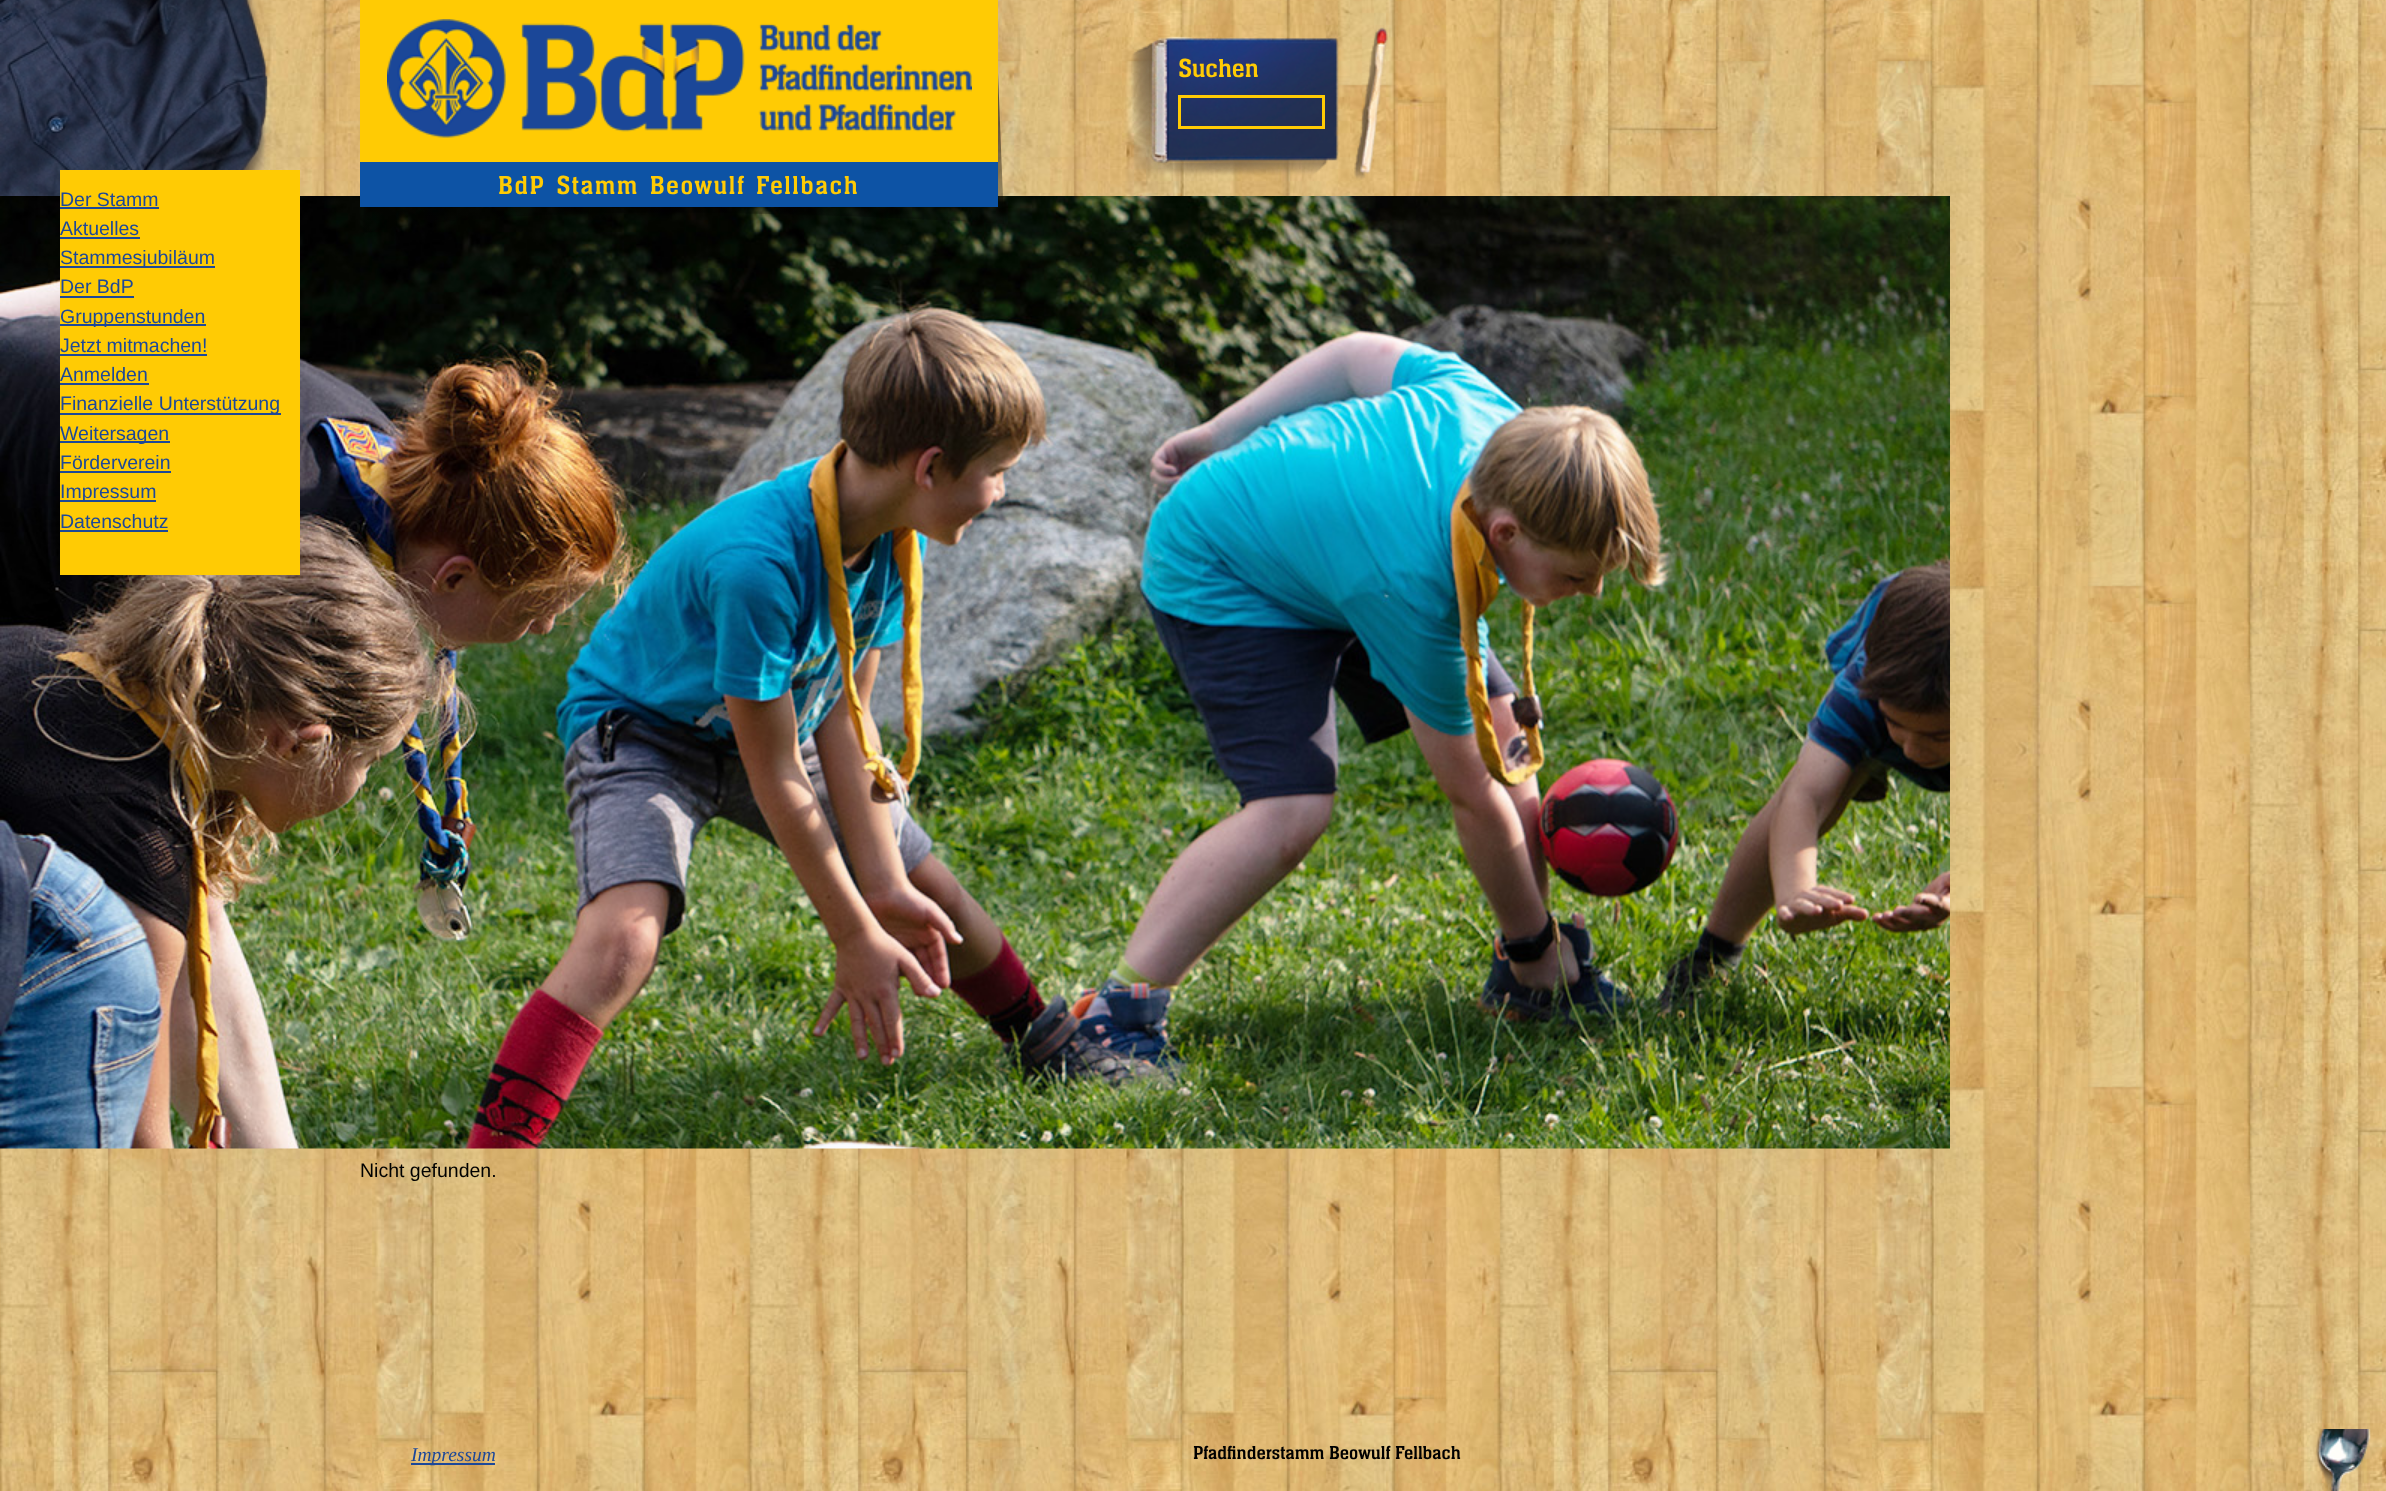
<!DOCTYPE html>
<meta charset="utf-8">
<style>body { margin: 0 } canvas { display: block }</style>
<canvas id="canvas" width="2386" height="1491"></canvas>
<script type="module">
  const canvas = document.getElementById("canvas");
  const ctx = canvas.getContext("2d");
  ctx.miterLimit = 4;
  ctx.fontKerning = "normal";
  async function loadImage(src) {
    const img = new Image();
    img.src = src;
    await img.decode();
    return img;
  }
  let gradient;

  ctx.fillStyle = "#ffffff";
  ctx.fillRect(0, 0, 2386, 1491);
  ctx.drawImage(await loadImage("img1.png"), 0, 0, 2386, 1491);
  ctx.drawImage(await loadImage("img2.png"), 0, 0, 269, 196);
  ctx.drawImage(await loadImage("img3.png"), 1131, 27, 257, 153);
  ctx.font = "27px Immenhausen";
  ctx.fillStyle = "#ffcb04";
  ctx.fillText("Suchen", 1178, 77);
  ctx.strokeStyle = "#ffcb04";
  ctx.lineWidth = 3;
  ctx.strokeRect(1179.5, 96.5, 144, 31);
  ctx.drawImage(await loadImage("img5.png"), 0, 196, 1950, 953);
  gradient = ctx.createLinearGradient(363, 23, 363, 319);
  gradient.addColorStop(0, "rgba(0, 0, 0, 0.7)");
  gradient.addColorStop(0.5, "rgba(0, 0, 0, 0.4)");
  gradient.addColorStop(0.8, "rgba(0, 0, 0, 0.1)");
  gradient.addColorStop(1, "rgba(0, 0, 0, 0)");
  ctx.fillStyle = gradient;
  ctx.beginPath();
  ctx.moveTo(363, 234);
  ctx.bezierCurveTo(511, 202, 829, 213, 1004, 224);
  ctx.lineTo(996, 22);
  ctx.lineTo(368, 22);
  ctx.closePath();
  ctx.fill();
  ctx.fillStyle = "#ffcb04";
  ctx.fillRect(360, 0, 638, 162);
  ctx.drawImage(await loadImage("img4.png"), 387, 19, 585, 119);
  ctx.fillStyle = "#0d53a5";
  ctx.fillRect(360, 162, 638, 45);
  ctx.letterSpacing = "1.5px";
  ctx.wordSpacing = "3px";
  ctx.fillStyle = "#ffcb04";
  ctx.fillText("BdP Stamm Beowulf Fellbach", 498, 194);
  ctx.fillRect(60, 170, 240, 405);
  ctx.letterSpacing = "0px";
  ctx.wordSpacing = "0px";
  ctx.font = "19.5px Liberation Sans";
  ctx.fillStyle = "#1d4899";
  ctx.fillText("Der Stamm", 60, 206);
  ctx.fillRect(60, 207, 99, 2);
  ctx.fillText("Aktuelles", 60, 235);
  ctx.fillRect(60, 237, 80, 2);
  ctx.fillRect(60, 266, 155, 2);
  ctx.fillText("Stammesjubiläum", 60, 264);
  ctx.fillText("Der BdP", 60, 293);
  ctx.fillRect(60, 296, 74, 2);
  ctx.fillRect(60, 324, 146, 2);
  ctx.fillText("Gruppenstunden", 60, 323);
  ctx.fillText("Jetzt mitmachen!", 60, 352);
  ctx.fillRect(60, 354, 147, 2);
  ctx.fillText("Anmelden", 60, 381);
  ctx.fillRect(60, 383, 89, 2);
  ctx.fillRect(60, 413, 221, 2);
  ctx.fillText("Finanzielle Unterstützung", 60, 410);
  ctx.fillRect(60, 441, 110, 2);
  ctx.fillText("Weitersagen", 60, 440);
  ctx.fillText("Förderverein", 60, 469);
  ctx.fillRect(60, 471, 111, 2);
  ctx.fillRect(60, 500, 96, 2);
  ctx.fillText("Impressum", 60, 498);
  ctx.fillText("Datenschutz", 60, 528);
  ctx.fillRect(60, 530, 108, 2);
  ctx.fillStyle = "#000000";
  ctx.fillText("Nicht gefunden.", 360, 1177);
  ctx.drawImage(await loadImage("img6.png"), 2315, 1429, 56, 62);
  ctx.fillStyle = "#1d4899";
  ctx.fillRect(411, 1463, 84, 2);
  ctx.font = "italic 19.5px Liberation Serif";
  ctx.fillText("Impressum", 411, 1461);
  ctx.font = "19.5px Immenhausen";
  ctx.fillStyle = "#000000";
  ctx.fillText("Pfadfinderstamm Beowulf Fellbach", 1193, 1459);
</script>
